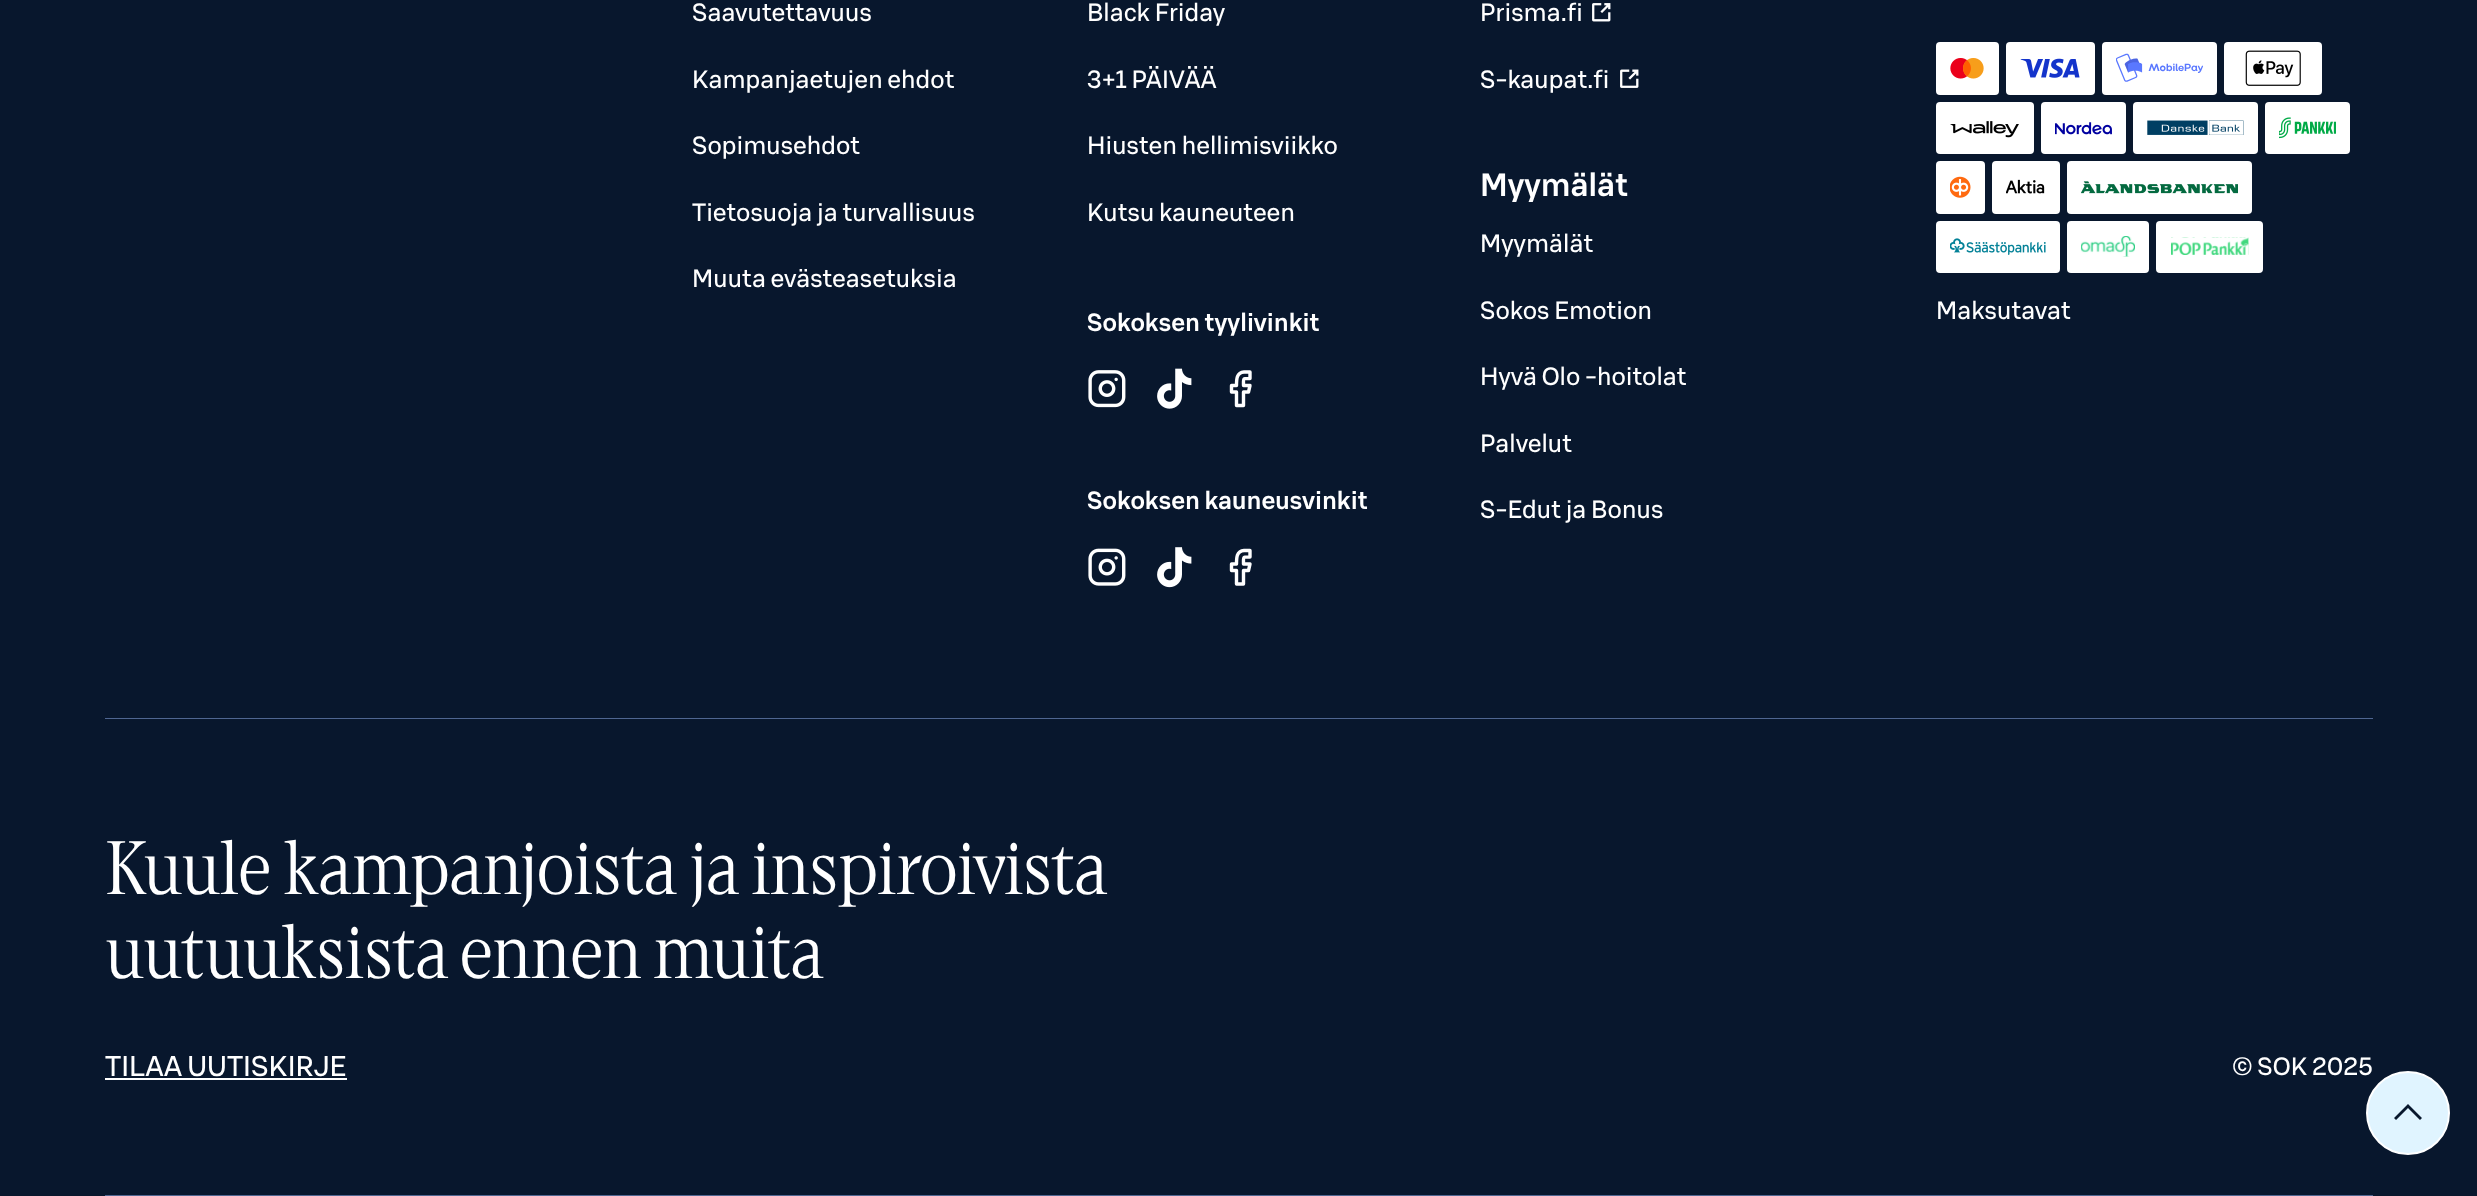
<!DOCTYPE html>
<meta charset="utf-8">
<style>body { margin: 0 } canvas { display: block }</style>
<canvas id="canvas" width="2477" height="1196"></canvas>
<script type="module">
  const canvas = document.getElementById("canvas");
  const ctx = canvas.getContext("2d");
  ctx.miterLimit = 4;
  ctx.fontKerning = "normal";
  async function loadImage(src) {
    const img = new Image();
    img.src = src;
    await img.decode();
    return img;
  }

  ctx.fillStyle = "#08172d";
  ctx.fillRect(0, 0, 2477, 1196);
  ctx.fillStyle = "#4f6691";
  ctx.fillRect(105, 718, 2268, 1);
  ctx.font = "24.5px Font";
  ctx.fillStyle = "#ffffff";
  ctx.fillText("Saavutettavuus", 692, 21);
  ctx.fillText("Kampanjaetujen ehdot", 692, 88);
  ctx.fillText("Sopimusehdot", 692, 154);
  ctx.fillText("Tietosuoja ja turvallisuus", 692, 221);
  ctx.fillText("Muuta evästeasetuksia", 692, 287);
  ctx.fillText("Black Friday", 1087, 21);
  ctx.fillText("3+1 PÄIVÄÄ", 1087, 88);
  ctx.fillText("Hiusten hellimisviikko", 1087, 154);
  ctx.fillText("Kutsu kauneuteen", 1087, 221);
  ctx.font = "500 24.5px Font";
  ctx.fillText("Sokoksen tyylivinkit", 1087, 331);
  ctx.drawImage(await loadImage("img1.png"), 1088, 370, 38, 38);
  ctx.drawImage(await loadImage("img2.png"), 1157, 368, 35, 41);
  ctx.beginPath();
  ctx.moveTo(1250, 372);
  ctx.lineTo(1244, 372);
  ctx.bezierCurveTo(1236.5, 372.5, 1236.5, 379.5, 1236.5, 385.5);
  ctx.lineTo(1231.5, 385.5);
  ctx.lineTo(1231.5, 392);
  ctx.lineTo(1236.5, 392);
  ctx.lineTo(1236.5, 405.5);
  ctx.lineTo(1243.5, 405.5);
  ctx.lineTo(1243.5, 392);
  ctx.lineTo(1248.5, 392);
  ctx.lineTo(1250, 385.5);
  ctx.lineTo(1243.5, 385.5);
  ctx.bezierCurveTo(1243.5, 378, 1242.5, 378.5, 1250, 378.5);
  ctx.closePath();
  ctx.strokeStyle = "#ffffff";
  ctx.lineWidth = 3.4;
  ctx.lineCap = "round";
  ctx.lineJoin = "round";
  ctx.stroke();
  ctx.fillText("Sokoksen kauneusvinkit", 1087, 509);
  ctx.drawImage(await loadImage("img3.png"), 1088, 548, 38, 38);
  ctx.drawImage(await loadImage("img4.png"), 1157, 547, 35, 41);
  ctx.beginPath();
  ctx.moveTo(1250, 550.5);
  ctx.lineTo(1244, 550.5);
  ctx.bezierCurveTo(1236.5, 551, 1236.5, 558, 1236.5, 564);
  ctx.lineTo(1231.5, 564);
  ctx.lineTo(1231.5, 570.5);
  ctx.lineTo(1236.5, 570.5);
  ctx.lineTo(1236.5, 584);
  ctx.lineTo(1243.5, 584);
  ctx.lineTo(1243.5, 570.5);
  ctx.lineTo(1248.5, 570.5);
  ctx.lineTo(1250, 564);
  ctx.lineTo(1243.5, 564);
  ctx.bezierCurveTo(1243.5, 556.5, 1242.5, 557, 1250, 557);
  ctx.closePath();
  ctx.stroke();
  ctx.font = "24.5px Font";
  ctx.fillText("Prisma.fi", 1480, 21);
  ctx.drawImage(await loadImage("img5.png"), 1592, 3, 19, 19);
  ctx.fillText("S-kaupat.fi", 1480, 88);
  ctx.drawImage(await loadImage("img6.png"), 1620, 69, 19, 19);
  ctx.font = "500 31.5px Font";
  ctx.fillText("Myymälät", 1480, 196);
  ctx.font = "24.5px Font";
  ctx.fillText("Myymälät", 1480, 252);
  ctx.fillText("Sokos Emotion", 1480, 319);
  ctx.fillText("Hyvä Olo -hoitolat", 1480, 385);
  ctx.fillText("Palvelut", 1480, 452);
  ctx.fillText("S-Edut ja Bonus", 1480, 518);
  ctx.beginPath();
  ctx.roundRect(1936, 42, 63, 53, 4);
  ctx.fill();
  ctx.drawImage(await loadImage("img7.png"), 1950, 58, 34, 21);
  ctx.beginPath();
  ctx.roundRect(2006, 42, 89, 53, 4);
  ctx.fill();
  ctx.drawImage(await loadImage("img8.png"), 2020, 58, 60, 20);
  ctx.beginPath();
  ctx.roundRect(2102, 42, 115, 53, 4);
  ctx.fill();
  ctx.drawImage(await loadImage("img9.png"), 2116, 53, 87, 29);
  ctx.beginPath();
  ctx.roundRect(2224, 42, 98, 53, 4);
  ctx.fill();
  ctx.drawImage(await loadImage("img10.png"), 2245, 50, 56, 36);
  ctx.beginPath();
  ctx.roundRect(1936, 102, 98, 52, 4);
  ctx.fill();
  ctx.drawImage(await loadImage("img11.png"), 1950, 121, 69, 17);
  ctx.beginPath();
  ctx.roundRect(2041, 102, 85, 52, 4);
  ctx.fill();
  ctx.drawImage(await loadImage("img12.png"), 2055, 122, 57, 13);
  ctx.beginPath();
  ctx.roundRect(2133, 102, 125, 52, 4);
  ctx.fill();
  ctx.drawImage(await loadImage("img13.png"), 2147, 120, 97, 15);
  ctx.beginPath();
  ctx.roundRect(2265, 102, 85, 52, 4);
  ctx.fill();
  ctx.drawImage(await loadImage("img14.png"), 2279, 117, 57, 22);
  ctx.beginPath();
  ctx.roundRect(1936, 161, 49, 53, 4);
  ctx.fill();
  ctx.drawImage(await loadImage("img15.png"), 1950, 176, 21, 22);
  ctx.beginPath();
  ctx.roundRect(1992, 161, 68, 53, 4);
  ctx.fill();
  ctx.drawImage(await loadImage("img16.png"), 2006, 179, 39, 15);
  ctx.beginPath();
  ctx.roundRect(2067, 161, 185, 53, 4);
  ctx.fill();
  ctx.drawImage(await loadImage("img17.png"), 2081, 181, 157, 13);
  ctx.beginPath();
  ctx.roundRect(1936, 221, 124, 52, 4);
  ctx.fill();
  ctx.drawImage(await loadImage("img18.png"), 1950, 238, 96, 17);
  ctx.beginPath();
  ctx.roundRect(2067, 221, 82, 52, 4);
  ctx.fill();
  ctx.drawImage(await loadImage("img19.png"), 2081, 236, 54, 21);
  ctx.beginPath();
  ctx.roundRect(2156, 221, 107, 52, 4);
  ctx.fill();
  ctx.drawImage(await loadImage("img20.png"), 2171, 237, 78, 18);
  ctx.fillText("Maksutavat", 1936, 319);
  ctx.font = "75.25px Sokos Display";
  ctx.fillText("Kuule kampanjoista ja inspiroivista", 105, 894);
  ctx.fillText("uutuuksista ennen muita", 105, 978);
  ctx.font = "28px Font";
  ctx.fillText("TILAA UUTISKIRJE", 105, 1076);
  ctx.fillRect(105, 1078, 242, 2);
  ctx.font = "24.5px Font";
  ctx.fillText("© SOK 2025", 2232, 1075);
  ctx.fillStyle = "#e0f4ff";
  ctx.beginPath();
  ctx.arc(2408, 1113, 41, 0, Math.PI * 2);
  ctx.fill();
  ctx.lineWidth = 2;
  ctx.stroke();
  ctx.fillStyle = "#08172d";
  ctx.beginPath();
  ctx.moveTo(2408, 1108);
  ctx.lineTo(2396, 1120);
  ctx.lineTo(2394, 1118);
  ctx.lineTo(2408, 1104);
  ctx.lineTo(2422, 1118);
  ctx.lineTo(2420, 1120);
  ctx.closePath();
  ctx.fill("evenodd");
  ctx.fillStyle = "#4f6691";
  ctx.fillRect(105, 1195, 2268, 1);
</script>
